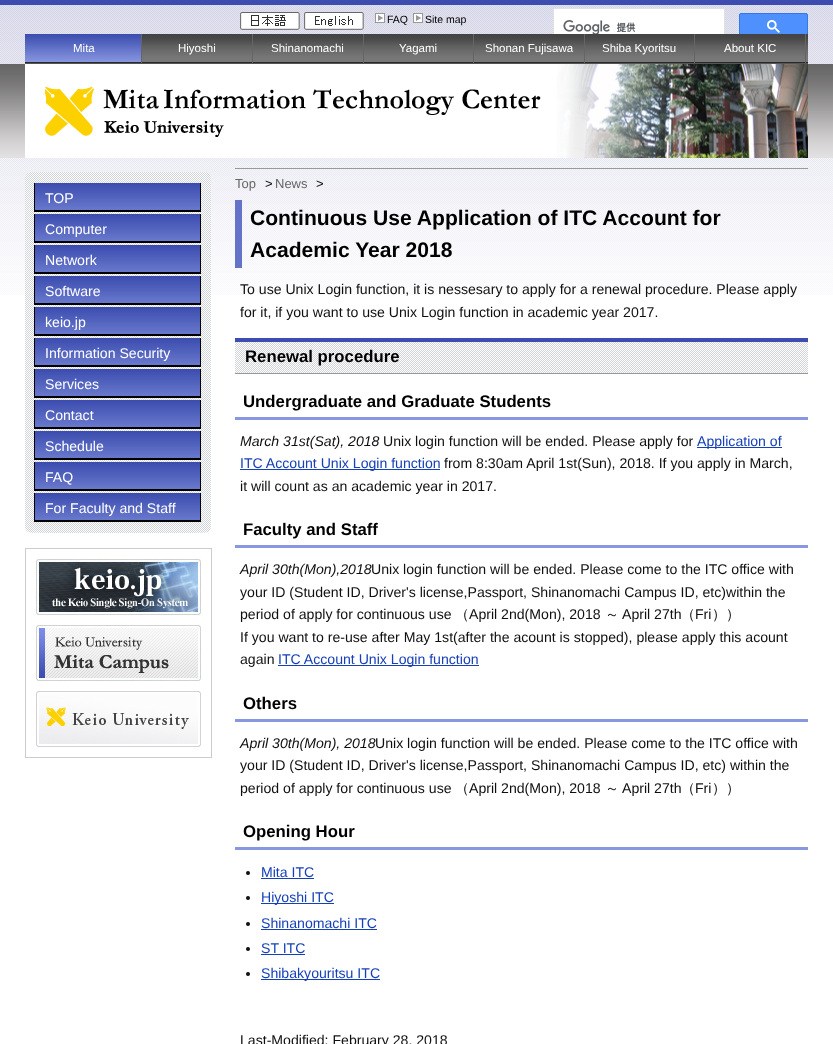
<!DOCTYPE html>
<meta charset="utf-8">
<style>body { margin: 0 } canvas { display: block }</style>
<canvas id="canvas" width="833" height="1044"></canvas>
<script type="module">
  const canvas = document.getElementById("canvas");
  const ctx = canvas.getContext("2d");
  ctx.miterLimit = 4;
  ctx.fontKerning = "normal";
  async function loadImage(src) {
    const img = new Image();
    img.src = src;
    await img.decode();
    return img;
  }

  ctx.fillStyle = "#ffffff";
  ctx.fillRect(0, 0, 833, 1044);
  ctx.drawImage(await loadImage("img1.png"), 0, 0, 833, 295);
  ctx.drawImage(await loadImage("img2.png"), 240, 12, 60, 18);
  ctx.drawImage(await loadImage("img3.png"), 304, 12, 60, 18);
  ctx.drawImage(await loadImage("img4.png"), 375, 13, 10, 10);
  ctx.font = "10.5px Liberation Sans";
  ctx.fillStyle = "#000000";
  ctx.fillText("FAQ", 387, 23);
  ctx.drawImage(await loadImage("img4.png"), 413, 13, 10, 10);
  ctx.fillText("Site map", 425, 23);
  ctx.fillStyle = "#ffffff";
  ctx.fillRect(554, 9, 170, 25);
  ctx.strokeStyle = "#dfe1e5";
  ctx.strokeRect(553.5, 8.5, 171, 36);
  ctx.drawImage(await loadImage("img5.png"), 563, 20, 73, 14);
  ctx.fillStyle = "#4d90fe";
  ctx.beginPath();
  ctx.roundRect(739.5, 13.5, 68, 26, 1.5);
  ctx.fill();
  ctx.strokeStyle = "#3079ed";
  ctx.stroke();
  ctx.drawImage(await loadImage("img6.png"), 767, 20, 13, 13);
  ctx.drawImage(await loadImage("img7.png"), 25, 34, 783, 30);
  ctx.drawImage(await loadImage("img8.png"), 25, 34, 116, 29);
  ctx.font = "11.5px Liberation Sans";
  ctx.fillStyle = "#ffffff";
  ctx.fillText("Mita", 73, 52);
  ctx.drawImage(await loadImage("img9.png"), 142, 34, 110, 29);
  ctx.fillStyle = "#656565";
  ctx.fillRect(141, 34, 1, 29);
  ctx.fillStyle = "#ffffff";
  ctx.fillText("Hiyoshi", 178, 52);
  ctx.drawImage(await loadImage("img9.png"), 253, 34, 110, 29);
  ctx.fillStyle = "#656565";
  ctx.fillRect(252, 34, 1, 29);
  ctx.fillStyle = "#ffffff";
  ctx.fillText("Shinanomachi", 271, 52);
  ctx.drawImage(await loadImage("img10.png"), 364, 34, 109, 29);
  ctx.fillStyle = "#656565";
  ctx.fillRect(363, 34, 1, 29);
  ctx.fillStyle = "#ffffff";
  ctx.fillText("Yagami", 399, 52);
  ctx.drawImage(await loadImage("img9.png"), 474, 34, 110, 29);
  ctx.fillStyle = "#656565";
  ctx.fillRect(473, 34, 1, 29);
  ctx.fillStyle = "#ffffff";
  ctx.fillText("Shonan Fujisawa", 485, 52);
  ctx.drawImage(await loadImage("img10.png"), 585, 34, 109, 29);
  ctx.fillStyle = "#656565";
  ctx.fillRect(584, 34, 1, 29);
  ctx.fillStyle = "#ffffff";
  ctx.fillText("Shiba Kyoritsu", 602, 52);
  ctx.drawImage(await loadImage("img9.png"), 695, 34, 110, 29);
  ctx.fillStyle = "#656565";
  ctx.fillRect(805, 34, 1, 29);
  ctx.fillRect(694, 34, 1, 29);
  ctx.fillStyle = "#ffffff";
  ctx.fillText("About KIC", 724, 52);
  ctx.fillRect(25, 64, 532, 94);
  ctx.drawImage(await loadImage("img11.png"), 557, 64, 251, 94);
  ctx.drawImage(await loadImage("img12.png"), 45, 86, 496, 51);
  ctx.drawImage(await loadImage("img13.png"), 25, 172, 186, 352);
  ctx.drawImage(await loadImage("img14.png"), 35, 183, 165, 27);
  ctx.fillStyle = "#000000";
  ctx.fillRect(200, 183, 1, 29);
  ctx.fillRect(34, 210, 167, 2);
  ctx.fillRect(34, 183, 1, 29);
  ctx.font = "14.1px Liberation Sans";
  ctx.fillStyle = "#ffffff";
  ctx.fillText("TOP", 45, 203);
  ctx.drawImage(await loadImage("img14.png"), 35, 214, 165, 27);
  ctx.fillStyle = "#000000";
  ctx.fillRect(200, 214, 1, 29);
  ctx.fillRect(34, 241, 167, 2);
  ctx.fillRect(34, 214, 1, 29);
  ctx.fillStyle = "#ffffff";
  ctx.fillText("Computer", 45, 234);
  ctx.drawImage(await loadImage("img14.png"), 35, 245, 165, 27);
  ctx.fillStyle = "#000000";
  ctx.fillRect(200, 245, 1, 29);
  ctx.fillRect(34, 272, 167, 2);
  ctx.fillRect(34, 245, 1, 29);
  ctx.fillStyle = "#ffffff";
  ctx.fillText("Network", 45, 265);
  ctx.drawImage(await loadImage("img14.png"), 35, 276, 165, 27);
  ctx.fillStyle = "#000000";
  ctx.fillRect(200, 276, 1, 29);
  ctx.fillRect(34, 303, 167, 2);
  ctx.fillRect(34, 276, 1, 29);
  ctx.fillStyle = "#ffffff";
  ctx.fillText("Software", 45, 296);
  ctx.drawImage(await loadImage("img14.png"), 35, 307, 165, 27);
  ctx.fillStyle = "#000000";
  ctx.fillRect(200, 307, 1, 29);
  ctx.fillRect(34, 334, 167, 2);
  ctx.fillRect(34, 307, 1, 29);
  ctx.fillStyle = "#ffffff";
  ctx.fillText("keio.jp", 45, 327);
  ctx.drawImage(await loadImage("img14.png"), 35, 338, 165, 27);
  ctx.fillStyle = "#000000";
  ctx.fillRect(200, 338, 1, 29);
  ctx.fillRect(34, 365, 167, 2);
  ctx.fillRect(34, 338, 1, 29);
  ctx.fillStyle = "#ffffff";
  ctx.fillText("Information Security", 45, 358);
  ctx.drawImage(await loadImage("img14.png"), 35, 369, 165, 27);
  ctx.fillStyle = "#000000";
  ctx.fillRect(200, 369, 1, 29);
  ctx.fillRect(34, 396, 167, 2);
  ctx.fillRect(34, 369, 1, 29);
  ctx.fillStyle = "#ffffff";
  ctx.fillText("Services", 45, 389);
  ctx.drawImage(await loadImage("img14.png"), 35, 400, 165, 27);
  ctx.fillStyle = "#000000";
  ctx.fillRect(200, 400, 1, 29);
  ctx.fillRect(34, 427, 167, 2);
  ctx.fillRect(34, 400, 1, 29);
  ctx.fillStyle = "#ffffff";
  ctx.fillText("Contact", 45, 420);
  ctx.drawImage(await loadImage("img14.png"), 35, 431, 165, 27);
  ctx.fillStyle = "#000000";
  ctx.fillRect(200, 431, 1, 29);
  ctx.fillRect(34, 458, 167, 2);
  ctx.fillRect(34, 431, 1, 29);
  ctx.fillStyle = "#ffffff";
  ctx.fillText("Schedule", 45, 451);
  ctx.drawImage(await loadImage("img14.png"), 35, 462, 165, 27);
  ctx.fillStyle = "#000000";
  ctx.fillRect(200, 462, 1, 29);
  ctx.fillRect(34, 489, 167, 2);
  ctx.fillRect(34, 462, 1, 29);
  ctx.fillStyle = "#ffffff";
  ctx.fillText("FAQ", 45, 482);
  ctx.drawImage(await loadImage("img14.png"), 35, 493, 165, 27);
  ctx.fillStyle = "#000000";
  ctx.fillRect(200, 493, 1, 29);
  ctx.fillRect(34, 520, 167, 2);
  ctx.fillRect(34, 493, 1, 29);
  ctx.fillStyle = "#ffffff";
  ctx.fillText("For Faculty and Staff", 45, 513);
  ctx.drawImage(await loadImage("img15.png"), 25, 524, 186, 9);
  ctx.strokeStyle = "#cccccc";
  ctx.strokeRect(25.5, 548.5, 186, 209);
  ctx.drawImage(await loadImage("img16.png"), 36, 559, 165, 56);
  ctx.drawImage(await loadImage("img17.png"), 36, 625, 165, 56);
  ctx.drawImage(await loadImage("img18.png"), 36, 691, 165, 56);
  ctx.fillStyle = "#999999";
  ctx.fillRect(235, 168, 573, 1);
  ctx.font = "13px Liberation Sans";
  ctx.fillStyle = "#666666";
  ctx.fillText("Top", 235, 188);
  ctx.fillStyle = "#0f0f0f";
  ctx.fillText(">", 265, 188);
  ctx.fillStyle = "#666666";
  ctx.fillText("News", 275, 188);
  ctx.fillStyle = "#0f0f0f";
  ctx.fillText(">", 316, 188);
  ctx.fillStyle = "#6472c8";
  ctx.fillRect(235, 200, 7, 68);
  ctx.font = "bold 21.1px Liberation Sans";
  ctx.fillStyle = "#000000";
  ctx.fillText("Continuous Use Application of ITC Account for", 250, 225);
  ctx.fillText("Academic Year 2018", 250, 257);
  ctx.font = "14.1px Liberation Sans";
  ctx.fillStyle = "#0f0f0f";
  ctx.fillText("To use Unix Login function, it is nessesary to apply for a renewal procedure. Please apply", 240, 294);
  ctx.fillText("for it, if you want to use Unix Login function in academic year 2017.", 240, 317);
  ctx.drawImage(await loadImage("img19.png"), 235, 342, 573, 31);
  ctx.fillStyle = "#3c4daf";
  ctx.fillRect(235, 338, 573, 4);
  ctx.fillStyle = "#999999";
  ctx.fillRect(235, 373, 573, 1);
  ctx.font = "bold 16.75px Liberation Sans";
  ctx.fillStyle = "#000000";
  ctx.fillText("Renewal procedure", 245, 362);
  ctx.fillStyle = "#8996e0";
  ctx.fillRect(235, 417, 573, 3);
  ctx.fillStyle = "#000000";
  ctx.fillText("Undergraduate and Graduate Students", 243, 407);
  ctx.font = "italic 14.1px Liberation Sans";
  ctx.fillStyle = "#0f0f0f";
  ctx.fillText("March 31st(Sat), 2018", 240, 446);
  ctx.font = "14.1px Liberation Sans";
  ctx.fillText("Unix login function will be ended. Please apply for", 383, 446);
  ctx.fillStyle = "#1640b8";
  ctx.fillRect(697, 447, 85, 1);
  ctx.fillText("Application of", 697, 446);
  ctx.fillRect(240, 469, 200, 1);
  ctx.fillText("ITC Account Unix Login function", 240, 468);
  ctx.fillStyle = "#0f0f0f";
  ctx.fillText("from 8:30am April 1st(Sun), 2018. If you apply in March,", 444, 468);
  ctx.fillText("it will count as an academic year in 2017.", 240, 491);
  ctx.fillStyle = "#8996e0";
  ctx.fillRect(235, 545, 573, 3);
  ctx.font = "bold 16.75px Liberation Sans";
  ctx.fillStyle = "#000000";
  ctx.fillText("Faculty and Staff", 243, 535);
  ctx.font = "italic 14.1px Liberation Sans";
  ctx.fillStyle = "#0f0f0f";
  ctx.fillText("April 30th(Mon),2018", 240, 574);
  ctx.font = "14.1px Liberation Sans";
  ctx.fillText("Unix login function will be ended. Please come to the ITC office with", 371, 574);
  ctx.fillText("your ID (Student ID, Driver's license,Passport, Shinanomachi Campus ID, etc)within the", 240, 597);
  ctx.fillText("period of apply for continuous use", 240, 619);
  ctx.font = "500 14.1px WenQuanYi Zen Hei";
  ctx.fillText("（", 455, 619);
  ctx.font = "14.1px Liberation Sans";
  ctx.fillText("April 2nd(Mon), 2018", 469, 619);
  ctx.font = "500 14.1px WenQuanYi Zen Hei";
  ctx.fillText("～", 605, 619);
  ctx.font = "14.1px Liberation Sans";
  ctx.fillText("April 27th", 622, 619);
  ctx.font = "500 14.1px WenQuanYi Zen Hei";
  ctx.fillText("（", 681, 619);
  ctx.font = "14.1px Liberation Sans";
  ctx.fillText("Fri", 695, 619);
  ctx.font = "500 14.1px WenQuanYi Zen Hei";
  ctx.fillText("））", 712, 619);
  ctx.font = "14.1px Liberation Sans";
  ctx.fillText("If you want to re-use after May 1st(after the acount is stopped), please apply this acount", 240, 642);
  ctx.fillText("again", 240, 664);
  ctx.fillStyle = "#1640b8";
  ctx.fillRect(278, 665, 201, 1);
  ctx.fillText("ITC Account Unix Login function", 278, 664);
  ctx.fillStyle = "#8996e0";
  ctx.fillRect(235, 719, 573, 3);
  ctx.font = "bold 16.75px Liberation Sans";
  ctx.fillStyle = "#000000";
  ctx.fillText("Others", 243, 709);
  ctx.font = "italic 14.1px Liberation Sans";
  ctx.fillStyle = "#0f0f0f";
  ctx.fillText("April 30th(Mon), 2018", 240, 748);
  ctx.font = "14.1px Liberation Sans";
  ctx.fillText("Unix login function will be ended. Please come to the ITC office with", 375, 748);
  ctx.fillText("your ID (Student ID, Driver's license,Passport, Shinanomachi Campus ID, etc) within the", 240, 770);
  ctx.fillText("period of apply for continuous use", 240, 793);
  ctx.font = "500 14.1px WenQuanYi Zen Hei";
  ctx.fillText("（", 455, 793);
  ctx.font = "14.1px Liberation Sans";
  ctx.fillText("April 2nd(Mon), 2018", 469, 793);
  ctx.font = "500 14.1px WenQuanYi Zen Hei";
  ctx.fillText("～", 605, 793);
  ctx.font = "14.1px Liberation Sans";
  ctx.fillText("April 27th", 622, 793);
  ctx.font = "500 14.1px WenQuanYi Zen Hei";
  ctx.fillText("（", 681, 793);
  ctx.font = "14.1px Liberation Sans";
  ctx.fillText("Fri", 695, 793);
  ctx.font = "500 14.1px WenQuanYi Zen Hei";
  ctx.fillText("））", 712, 793);
  ctx.fillStyle = "#8996e0";
  ctx.fillRect(235, 847, 573, 3);
  ctx.font = "bold 16.75px Liberation Sans";
  ctx.fillStyle = "#000000";
  ctx.fillText("Opening Hour", 243, 837);
  ctx.fillStyle = "#0f0f0f";
  ctx.beginPath();
  ctx.arc(248, 873, 2, 0, Math.PI * 2);
  ctx.fill();
  ctx.font = "14.1px Liberation Sans";
  ctx.fillStyle = "#1640b8";
  ctx.fillText("Mita ITC", 261, 877);
  ctx.fillRect(261, 878, 53, 1);
  ctx.fillStyle = "#0f0f0f";
  ctx.beginPath();
  ctx.arc(248, 898, 2, 0, Math.PI * 2);
  ctx.fill();
  ctx.fillStyle = "#1640b8";
  ctx.fillRect(261, 903, 73, 1);
  ctx.fillText("Hiyoshi ITC", 261, 902);
  ctx.fillStyle = "#0f0f0f";
  ctx.beginPath();
  ctx.arc(248, 924, 2, 0, Math.PI * 2);
  ctx.fill();
  ctx.fillStyle = "#1640b8";
  ctx.fillText("Shinanomachi ITC", 261, 928);
  ctx.fillRect(261, 929, 116, 1);
  ctx.fillStyle = "#0f0f0f";
  ctx.beginPath();
  ctx.arc(248, 949, 2, 0, Math.PI * 2);
  ctx.fill();
  ctx.fillStyle = "#1640b8";
  ctx.fillText("ST ITC", 261, 953);
  ctx.fillRect(261, 954, 44, 1);
  ctx.fillStyle = "#0f0f0f";
  ctx.beginPath();
  ctx.arc(248, 974, 2, 0, Math.PI * 2);
  ctx.fill();
  ctx.fillStyle = "#1640b8";
  ctx.fillRect(261, 979, 119, 1);
  ctx.fillText("Shibakyouritsu ITC", 261, 978);
  ctx.fillStyle = "#0f0f0f";
  ctx.fillText("Last-Modified: February 28, 2018", 240, 1045);
</script>
